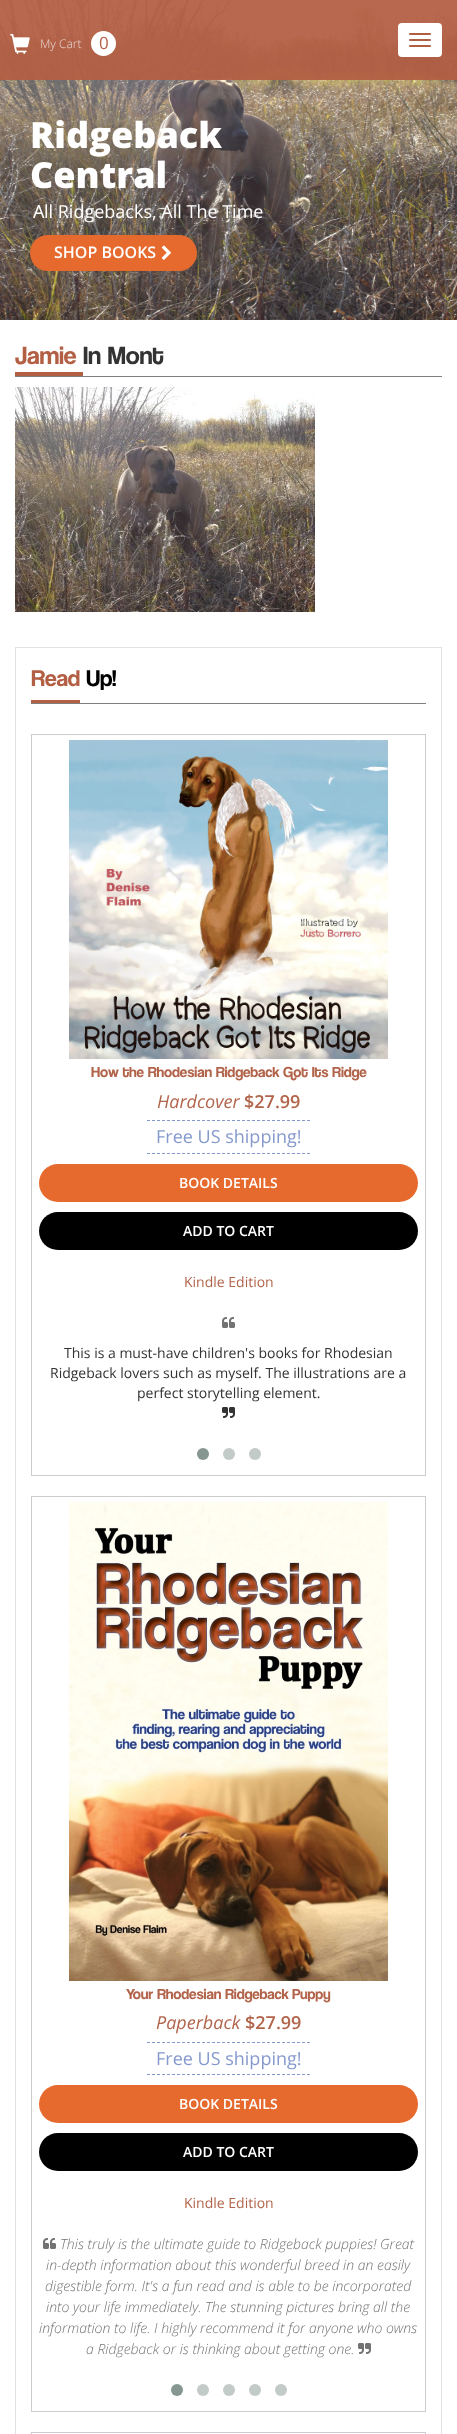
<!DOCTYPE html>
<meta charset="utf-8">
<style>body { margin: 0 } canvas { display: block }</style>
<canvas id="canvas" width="457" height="2434"></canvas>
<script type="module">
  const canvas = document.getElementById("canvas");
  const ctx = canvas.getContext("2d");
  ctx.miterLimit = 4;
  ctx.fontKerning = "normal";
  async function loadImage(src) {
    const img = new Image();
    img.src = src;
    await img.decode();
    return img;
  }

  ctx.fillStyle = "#ffffff";
  ctx.fillRect(0, 0, 457, 2434);
  ctx.drawImage(await loadImage("img2.png"), 0, 0, 457, 320);
  ctx.fillStyle = "rgba(178, 95, 67, 0.94)";
  ctx.fillRect(0, 0, 457, 80);
  ctx.drawImage(await loadImage("img1.png"), 10, 34, 20, 20);
  ctx.font = "300 12px Open Sans";
  ctx.fillStyle = "#ead7d3";
  ctx.fillText("My Cart", 40, 48);
  ctx.fillStyle = "#ffffff";
  ctx.beginPath();
  ctx.arc(103.5, 43.5, 12.5, 0, Math.PI * 2);
  ctx.fill();
  ctx.font = "17px Open Sans";
  ctx.fillStyle = "#b35f44";
  ctx.fillText("0", 99, 49);
  ctx.fillStyle = "#ffffff";
  ctx.beginPath();
  ctx.roundRect(398, 23, 44, 34, 4);
  ctx.fill();
  ctx.fillStyle = "#b05e41";
  ctx.beginPath();
  ctx.roundRect(409, 33, 22, 2, 1);
  ctx.fill();
  ctx.beginPath();
  ctx.roundRect(409, 39, 22, 2, 1);
  ctx.fill();
  ctx.beginPath();
  ctx.roundRect(409, 45, 22, 2, 1);
  ctx.fill();
  ctx.font = "800 36px Open Sans";
  ctx.fillStyle = "#ffffff";
  ctx.fillText("Ridgeback", 30, 148);
  ctx.fillText("Central", 30, 188);
  ctx.font = "18px Noto Sans";
  ctx.fillText("A", 33, 218);
  ctx.font = "18px Open Sans";
  ctx.fillText("ll Ridgebacks, All The Time", 44, 218);
  ctx.fillStyle = "#e6692d";
  ctx.beginPath();
  ctx.roundRect(30, 235, 167, 36, 18);
  ctx.fill();
  ctx.font = "600 16px Open Sans";
  ctx.fillStyle = "#ffffff";
  ctx.fillText("SHOP BOOKS", 54, 258);
  ctx.drawImage(await loadImage("img3.png"), 161, 245, 10, 15);
  ctx.fillStyle = "#7f7f7f";
  ctx.fillRect(15, 376, 427, 1);
  ctx.font = "24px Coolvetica";
  ctx.fillStyle = "#b35f44";
  ctx.fillText("Jamie", 15, 364);
  ctx.fillRect(15, 372, 68, 4);
  ctx.fillStyle = "#333333";
  ctx.fillText("In Mont", 83, 364);
  ctx.drawImage(await loadImage("img4.png"), 15, 387, 300, 225);
  ctx.strokeStyle = "#e2e2e2";
  ctx.strokeRect(15.5, 647.5, 426, 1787);
  ctx.fillStyle = "#7f7f7f";
  ctx.fillRect(31, 703, 395, 1);
  ctx.font = "22px Coolvetica";
  ctx.fillStyle = "#b35f44";
  ctx.fillText("Read", 31, 686);
  ctx.fillRect(31, 700, 49, 3);
  ctx.fillStyle = "#000000";
  ctx.fillText("Up!", 86, 686);
  ctx.strokeStyle = "#cccccc";
  ctx.strokeRect(31.5, 734.5, 394, 741);
  ctx.drawImage(await loadImage("img5.png"), 69, 740, 319, 319);
  ctx.font = "14px Coolvetica";
  ctx.fillStyle = "#b2644a";
  ctx.fillText("How the Rhodesian Ridgeback Got Its Ridge", 91, 1077);
  ctx.font = "italic 18px Open Sans";
  ctx.fillText("Hardcover", 157, 1108);
  ctx.font = "600 18px Open Sans";
  ctx.fillText("$27.99", 244, 1108);
  ctx.beginPath();
  ctx.moveTo(147, 1120.5);
  ctx.lineTo(310, 1120.5);
  ctx.strokeStyle = "#8599cd";
  ctx.setLineDash([3, 2]);
  ctx.stroke();
  ctx.beginPath();
  ctx.moveTo(147, 1153.5);
  ctx.lineTo(310, 1153.5);
  ctx.stroke();
  ctx.font = "18px Open Sans";
  ctx.fillStyle = "#8599cd";
  ctx.fillText("Free US shipping!", 156, 1143);
  ctx.fillStyle = "#e6692d";
  ctx.beginPath();
  ctx.roundRect(39, 1164, 379, 38, 19);
  ctx.fill();
  ctx.font = "600 14px Open Sans";
  ctx.fillStyle = "#ffffff";
  ctx.fillText("BOOK DETAILS", 179, 1188);
  ctx.fillStyle = "#000000";
  ctx.beginPath();
  ctx.roundRect(39, 1212, 379, 38, 19);
  ctx.fill();
  ctx.fillStyle = "#ffffff";
  ctx.fillText("ADD TO CART", 183, 1236);
  ctx.font = "14px Open Sans";
  ctx.fillStyle = "#b2644a";
  ctx.fillText("Kindle Edition", 184, 1287);
  ctx.drawImage(await loadImage("img6.png"), 222, 1317, 13, 11);
  ctx.fillStyle = "#333333";
  ctx.fillText("This is a must-have children's books for Rhodesian", 64, 1358);
  ctx.fillText("Ridgeback lovers such as myself. The illustrations are a", 50, 1378);
  ctx.fillText("perfect storytelling element.", 137, 1398);
  ctx.drawImage(await loadImage("img7.png"), 222, 1407, 13, 11);
  ctx.fillStyle = "#869791";
  ctx.beginPath();
  ctx.arc(203, 1454, 6, 0, Math.PI * 2);
  ctx.fill();
  ctx.fillStyle = "#c3cbc8";
  ctx.beginPath();
  ctx.arc(229, 1454, 6, 0, Math.PI * 2);
  ctx.fill();
  ctx.beginPath();
  ctx.arc(255, 1454, 6, 0, Math.PI * 2);
  ctx.fill();
  ctx.strokeStyle = "#cccccc";
  ctx.setLineDash([]);
  ctx.strokeRect(31.5, 1496.5, 394, 915);
  ctx.drawImage(await loadImage("img8.png"), 69, 1502, 319, 479);
  ctx.font = "14px Coolvetica";
  ctx.fillStyle = "#b2644a";
  ctx.fillText("Your Rhodesian Ridgeback Puppy", 126, 1999);
  ctx.font = "italic 18px Open Sans";
  ctx.fillText("Paperback", 156, 2029);
  ctx.font = "600 18px Open Sans";
  ctx.fillText("$27.99", 245, 2029);
  ctx.beginPath();
  ctx.moveTo(147, 2042.5);
  ctx.lineTo(310, 2042.5);
  ctx.strokeStyle = "#8599cd";
  ctx.setLineDash([3, 2]);
  ctx.stroke();
  ctx.beginPath();
  ctx.moveTo(147, 2074.5);
  ctx.lineTo(310, 2074.5);
  ctx.stroke();
  ctx.font = "18px Open Sans";
  ctx.fillStyle = "#8599cd";
  ctx.fillText("Free US shipping!", 156, 2065);
  ctx.fillStyle = "#e6692d";
  ctx.beginPath();
  ctx.roundRect(39, 2085, 379, 38, 19);
  ctx.fill();
  ctx.font = "600 14px Open Sans";
  ctx.fillStyle = "#ffffff";
  ctx.fillText("BOOK DETAILS", 179, 2109);
  ctx.fillStyle = "#000000";
  ctx.beginPath();
  ctx.roundRect(39, 2133, 379, 38, 19);
  ctx.fill();
  ctx.fillStyle = "#ffffff";
  ctx.fillText("ADD TO CART", 183, 2157);
  ctx.font = "14px Open Sans";
  ctx.fillStyle = "#b2644a";
  ctx.fillText("Kindle Edition", 184, 2208);
  ctx.drawImage(await loadImage("img6.png"), 43, 2238, 13, 11);
  ctx.font = "italic 300 14px Open Sans";
  ctx.fillStyle = "#737373";
  ctx.fillText("This truly is the ultimate guide to Ridgeback puppies! Great", 60, 2249);
  ctx.fillText("in-depth information about this wonderful breed in an easily", 46, 2270);
  ctx.fillText("digestible form. It's a fun read and is able to be incorporated", 45, 2291);
  ctx.fillText("into your life immediately. The stunning pictures bring all the", 46, 2312);
  ctx.fillText("information to life. I highly recommend it for anyone who owns", 39, 2333);
  ctx.fillText("a Ridgeback or is thinking about getting one.", 86, 2354);
  ctx.drawImage(await loadImage("img9.png"), 358, 2343, 13, 11);
  ctx.fillStyle = "#869791";
  ctx.beginPath();
  ctx.arc(177, 2390, 6, 0, Math.PI * 2);
  ctx.fill();
  ctx.fillStyle = "#c3cbc8";
  ctx.beginPath();
  ctx.arc(203, 2390, 6, 0, Math.PI * 2);
  ctx.fill();
  ctx.beginPath();
  ctx.arc(229, 2390, 6, 0, Math.PI * 2);
  ctx.fill();
  ctx.beginPath();
  ctx.arc(255, 2390, 6, 0, Math.PI * 2);
  ctx.fill();
  ctx.beginPath();
  ctx.arc(281, 2390, 6, 0, Math.PI * 2);
  ctx.fill();
  ctx.strokeStyle = "#cccccc";
  ctx.setLineDash([]);
  ctx.strokeRect(31.5, 2432.5, 394, 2);
</script>
